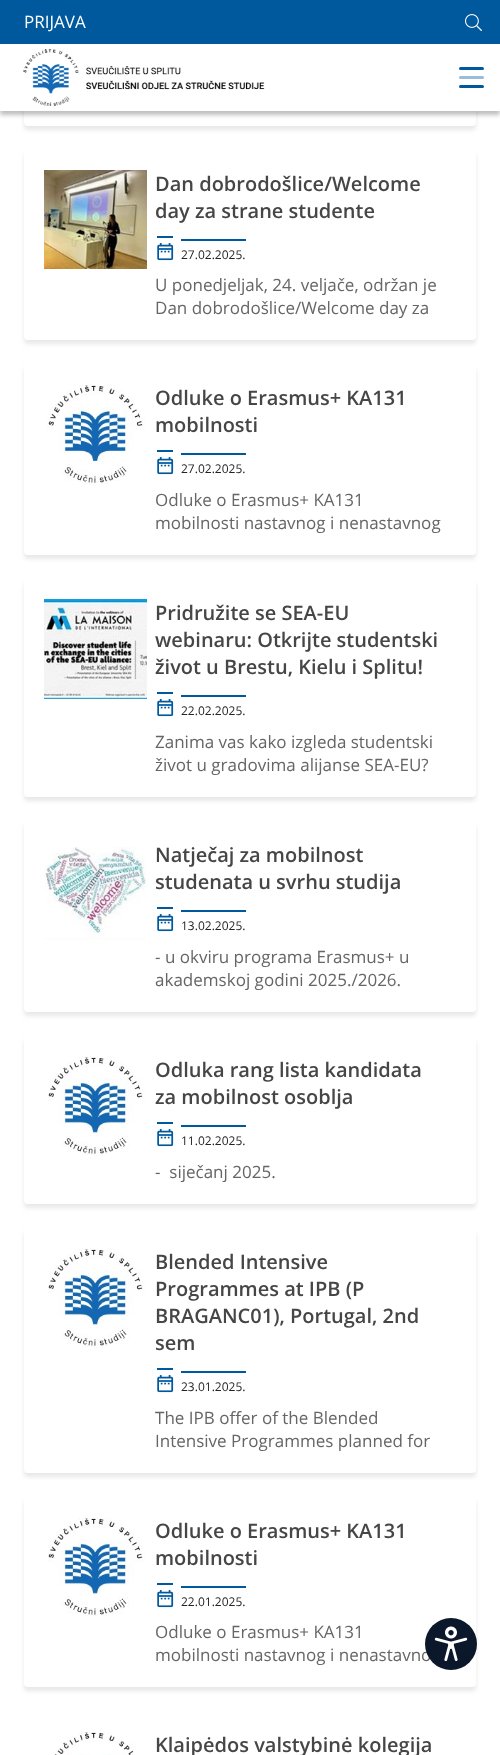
<!DOCTYPE html>
<meta charset="utf-8">
<style>body { margin: 0 } canvas { display: block }</style>
<canvas id="canvas" width="500" height="1755"></canvas>
<script type="module">
  const canvas = document.getElementById("canvas");
  const ctx = canvas.getContext("2d");
  ctx.miterLimit = 4;
  ctx.fontKerning = "normal";
  async function loadImage(src) {
    const img = new Image();
    img.src = src;
    await img.decode();
    return img;
  }

  ctx.fillStyle = "#ffffff";
  ctx.fillRect(0, 0, 500, 1755);
  ctx.fillStyle = "rgba(162, 162, 162, 0.25)";
  ctx.filter = "blur(2px)";
  ctx.beginPath();
  ctx.roundRect(24, -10, 452, 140, 4);
  ctx.fill();
  ctx.filter = "none";
  ctx.fillStyle = "#ffffff";
  ctx.beginPath();
  ctx.roundRect(24, -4, 452, 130, 4);
  ctx.fill();
  ctx.fillStyle = "rgba(0, 0, 0, 0.25)";
  ctx.filter = "blur(2px)";
  ctx.beginPath();
  ctx.rect(0, 4, 500, 111);
  ctx.fill();
  ctx.filter = "none";
  ctx.fillStyle = "#ffffff";
  ctx.fillRect(0, 44, 500, 67);
  ctx.fillStyle = "#00589d";
  ctx.fillRect(0, 0, 500, 44);
  ctx.font = "17px Open Sans";
  ctx.fillStyle = "#ffffff";
  ctx.fillText("PRIJAVA", 24, 28);
  ctx.drawImage(await loadImage("img1.png"), 465, 14, 17, 17);
  ctx.drawImage(await loadImage("img2.png"), 23, 49, 242, 58);
  ctx.fillStyle = "#00589d";
  ctx.beginPath();
  ctx.roundRect(459, 67, 25, 3, 1.5);
  ctx.fill();
  ctx.fillStyle = "#99bcd8";
  ctx.beginPath();
  ctx.roundRect(459, 76, 25, 3, 1.5);
  ctx.fill();
  ctx.fillStyle = "#00589d";
  ctx.beginPath();
  ctx.roundRect(459, 85, 25, 3, 1.5);
  ctx.fill();
  ctx.fillStyle = "rgba(162, 162, 162, 0.25)";
  ctx.filter = "blur(2px)";
  ctx.beginPath();
  ctx.roundRect(24, 1501, 452, 190, 4);
  ctx.fill();
  ctx.filter = "none";
  ctx.fillStyle = "#ffffff";
  ctx.beginPath();
  ctx.roundRect(24, 1497, 452, 190, 4);
  ctx.fill();
  ctx.fillStyle = "#666666";
  ctx.fillText("mobilnosti nastavnog i nenastavno", 155, 1661);
  ctx.fillStyle = "#0b172a";
  ctx.beginPath();
  ctx.arc(451, 1644, 26, 0, Math.PI * 2);
  ctx.fill();
  ctx.drawImage(await loadImage("img3.png"), 434, 1626, 34, 36);
  ctx.fillStyle = "rgba(162, 162, 162, 0.25)";
  ctx.filter = "blur(2px)";
  ctx.beginPath();
  ctx.roundRect(24, 154, 452, 190, 4);
  ctx.fill();
  ctx.filter = "none";
  ctx.fillStyle = "#ffffff";
  ctx.beginPath();
  ctx.roundRect(24, 150, 452, 190, 4);
  ctx.fill();
  ctx.drawImage(await loadImage("img4.png"), 44, 170, 103, 99);
  ctx.font = "600 20px Open Sans";
  ctx.fillStyle = "#464646";
  ctx.fillText("Dan dobrodošlice/Welcome", 155, 191);
  ctx.fillText("day za strane studente", 155, 218);
  ctx.drawImage(await loadImage("img5.png"), 157, 243, 17, 18);
  ctx.font = "12px Open Sans";
  ctx.fillStyle = "#242424";
  ctx.fillText("27.02.2025.", 181, 259);
  ctx.fillStyle = "#00589d";
  ctx.fillRect(157, 236, 16, 2);
  ctx.fillRect(181, 239, 65, 2);
  ctx.font = "17px Open Sans";
  ctx.fillStyle = "#666666";
  ctx.fillText("U ponedjeljak, 24. veljače, održan je", 155, 291);
  ctx.fillText("Dan dobrodošlice/Welcome day za", 155, 314);
  ctx.fillStyle = "rgba(162, 162, 162, 0.25)";
  ctx.filter = "blur(2px)";
  ctx.beginPath();
  ctx.roundRect(24, 368, 452, 191, 4);
  ctx.fill();
  ctx.filter = "none";
  ctx.fillStyle = "#ffffff";
  ctx.beginPath();
  ctx.roundRect(24, 364, 452, 191, 4);
  ctx.fill();
  ctx.drawImage(await loadImage("img6.png"), 47, 385, 98, 99);
  ctx.font = "600 20px Open Sans";
  ctx.fillStyle = "#464646";
  ctx.fillText("Odluke o Erasmus+ KA131", 155, 405);
  ctx.fillText("mobilnosti", 155, 432);
  ctx.drawImage(await loadImage("img5.png"), 157, 457, 17, 18);
  ctx.font = "12px Open Sans";
  ctx.fillStyle = "#242424";
  ctx.fillText("27.02.2025.", 181, 473);
  ctx.fillStyle = "#00589d";
  ctx.fillRect(157, 450, 16, 2);
  ctx.fillRect(181, 453, 65, 2);
  ctx.font = "17px Open Sans";
  ctx.fillStyle = "#666666";
  ctx.fillText("Odluke o Erasmus+ KA131", 155, 506);
  ctx.fillText("mobilnosti nastavnog i nenastavnog", 155, 529);
  ctx.fillStyle = "rgba(162, 162, 162, 0.25)";
  ctx.filter = "blur(2px)";
  ctx.beginPath();
  ctx.roundRect(24, 583, 452, 218, 4);
  ctx.fill();
  ctx.filter = "none";
  ctx.fillStyle = "#ffffff";
  ctx.beginPath();
  ctx.roundRect(24, 579, 452, 218, 4);
  ctx.fill();
  ctx.drawImage(await loadImage("img7.png"), 44, 599, 103, 100);
  ctx.font = "600 20px Open Sans";
  ctx.fillStyle = "#464646";
  ctx.fillText("Pridružite se SEA-EU", 155, 620);
  ctx.fillText("webinaru: Otkrijte studentski", 155, 647);
  ctx.fillText("život u Brestu, Kielu i Splitu!", 155, 674);
  ctx.drawImage(await loadImage("img5.png"), 157, 699, 17, 18);
  ctx.font = "12px Open Sans";
  ctx.fillStyle = "#242424";
  ctx.fillText("22.02.2025.", 181, 715);
  ctx.fillStyle = "#00589d";
  ctx.fillRect(157, 692, 16, 2);
  ctx.fillRect(181, 695, 65, 2);
  ctx.font = "17px Open Sans";
  ctx.fillStyle = "#666666";
  ctx.fillText("Zanima vas kako izgleda studentski", 155, 748);
  ctx.fillText("život u gradovima alijanse SEA-EU?", 155, 771);
  ctx.fillStyle = "rgba(162, 162, 162, 0.25)";
  ctx.filter = "blur(2px)";
  ctx.beginPath();
  ctx.roundRect(24, 825, 452, 191, 4);
  ctx.fill();
  ctx.filter = "none";
  ctx.fillStyle = "#ffffff";
  ctx.beginPath();
  ctx.roundRect(24, 821, 452, 191, 4);
  ctx.fill();
  ctx.drawImage(await loadImage("img8.png"), 44, 847, 103, 93);
  ctx.font = "600 20px Open Sans";
  ctx.fillStyle = "#464646";
  ctx.fillText("Natječaj za mobilnost", 155, 862);
  ctx.fillText("studenata u svrhu studija", 155, 889);
  ctx.drawImage(await loadImage("img5.png"), 157, 914, 17, 18);
  ctx.font = "12px Open Sans";
  ctx.fillStyle = "#242424";
  ctx.fillText("13.02.2025.", 181, 930);
  ctx.fillStyle = "#00589d";
  ctx.fillRect(157, 907, 16, 2);
  ctx.fillRect(181, 910, 65, 2);
  ctx.font = "17px Open Sans";
  ctx.fillStyle = "#666666";
  ctx.fillText("- u okviru programa Erasmus+ u", 155, 963);
  ctx.fillText("akademskoj godini 2025./2026.", 155, 986);
  ctx.fillStyle = "rgba(162, 162, 162, 0.25)";
  ctx.filter = "blur(2px)";
  ctx.beginPath();
  ctx.roundRect(24, 1040, 452, 168, 4);
  ctx.fill();
  ctx.filter = "none";
  ctx.fillStyle = "#ffffff";
  ctx.beginPath();
  ctx.roundRect(24, 1036, 452, 168, 4);
  ctx.fill();
  ctx.drawImage(await loadImage("img9.png"), 48, 1057, 97, 98);
  ctx.font = "600 20px Open Sans";
  ctx.fillStyle = "#464646";
  ctx.fillText("Odluka rang lista kandidata", 155, 1077);
  ctx.fillText("za mobilnost osoblja", 155, 1104);
  ctx.drawImage(await loadImage("img5.png"), 157, 1129, 17, 18);
  ctx.font = "12px Open Sans";
  ctx.fillStyle = "#242424";
  ctx.fillText("11.02.2025.", 181, 1145);
  ctx.fillStyle = "#00589d";
  ctx.fillRect(157, 1122, 16, 2);
  ctx.fillRect(181, 1125, 65, 2);
  ctx.font = "17px Open Sans";
  ctx.fillStyle = "#666666";
  ctx.fillText("-  siječanj 2025.", 155, 1178);
  ctx.fillStyle = "rgba(162, 162, 162, 0.25)";
  ctx.filter = "blur(2px)";
  ctx.beginPath();
  ctx.roundRect(24, 1232, 452, 245, 4);
  ctx.fill();
  ctx.filter = "none";
  ctx.fillStyle = "#ffffff";
  ctx.beginPath();
  ctx.roundRect(24, 1228, 452, 245, 4);
  ctx.fill();
  ctx.drawImage(await loadImage("img9.png"), 48, 1249, 97, 98);
  ctx.font = "600 20px Open Sans";
  ctx.fillStyle = "#464646";
  ctx.fillText("Blended Intensive", 155, 1269);
  ctx.fillText("Programmes at IPB (P", 155, 1296);
  ctx.fillText("BRAGANC01), Portugal, 2nd", 155, 1323);
  ctx.fillText("sem", 155, 1350);
  ctx.drawImage(await loadImage("img5.png"), 157, 1375, 17, 18);
  ctx.font = "12px Open Sans";
  ctx.fillStyle = "#242424";
  ctx.fillText("23.01.2025.", 181, 1391);
  ctx.fillStyle = "#00589d";
  ctx.fillRect(157, 1368, 16, 2);
  ctx.fillRect(181, 1371, 65, 2);
  ctx.font = "17px Open Sans";
  ctx.fillStyle = "#666666";
  ctx.fillText("The IPB offer of the Blended", 155, 1424);
  ctx.fillText("Intensive Programmes planned for", 155, 1447);
  ctx.drawImage(await loadImage("img10.png"), 48, 1518, 97, 98);
  ctx.font = "600 20px Open Sans";
  ctx.fillStyle = "#464646";
  ctx.fillText("Odluke o Erasmus+ KA131", 155, 1538);
  ctx.fillText("mobilnosti", 155, 1565);
  ctx.drawImage(await loadImage("img5.png"), 157, 1590, 17, 18);
  ctx.font = "12px Open Sans";
  ctx.fillStyle = "#242424";
  ctx.fillText("22.01.2025.", 181, 1606);
  ctx.fillStyle = "#00589d";
  ctx.fillRect(157, 1583, 16, 2);
  ctx.fillRect(181, 1586, 65, 2);
  ctx.font = "17px Open Sans";
  ctx.fillStyle = "#666666";
  ctx.fillText("Odluke o Erasmus+ KA131", 155, 1638);
  ctx.drawImage(await loadImage("img11.png"), 54, 1732, 80, 23);
  ctx.font = "600 20px Open Sans";
  ctx.fillStyle = "#464646";
  ctx.fillText("Klaipėdos valstybinė kolegija", 155, 1752);
</script>
